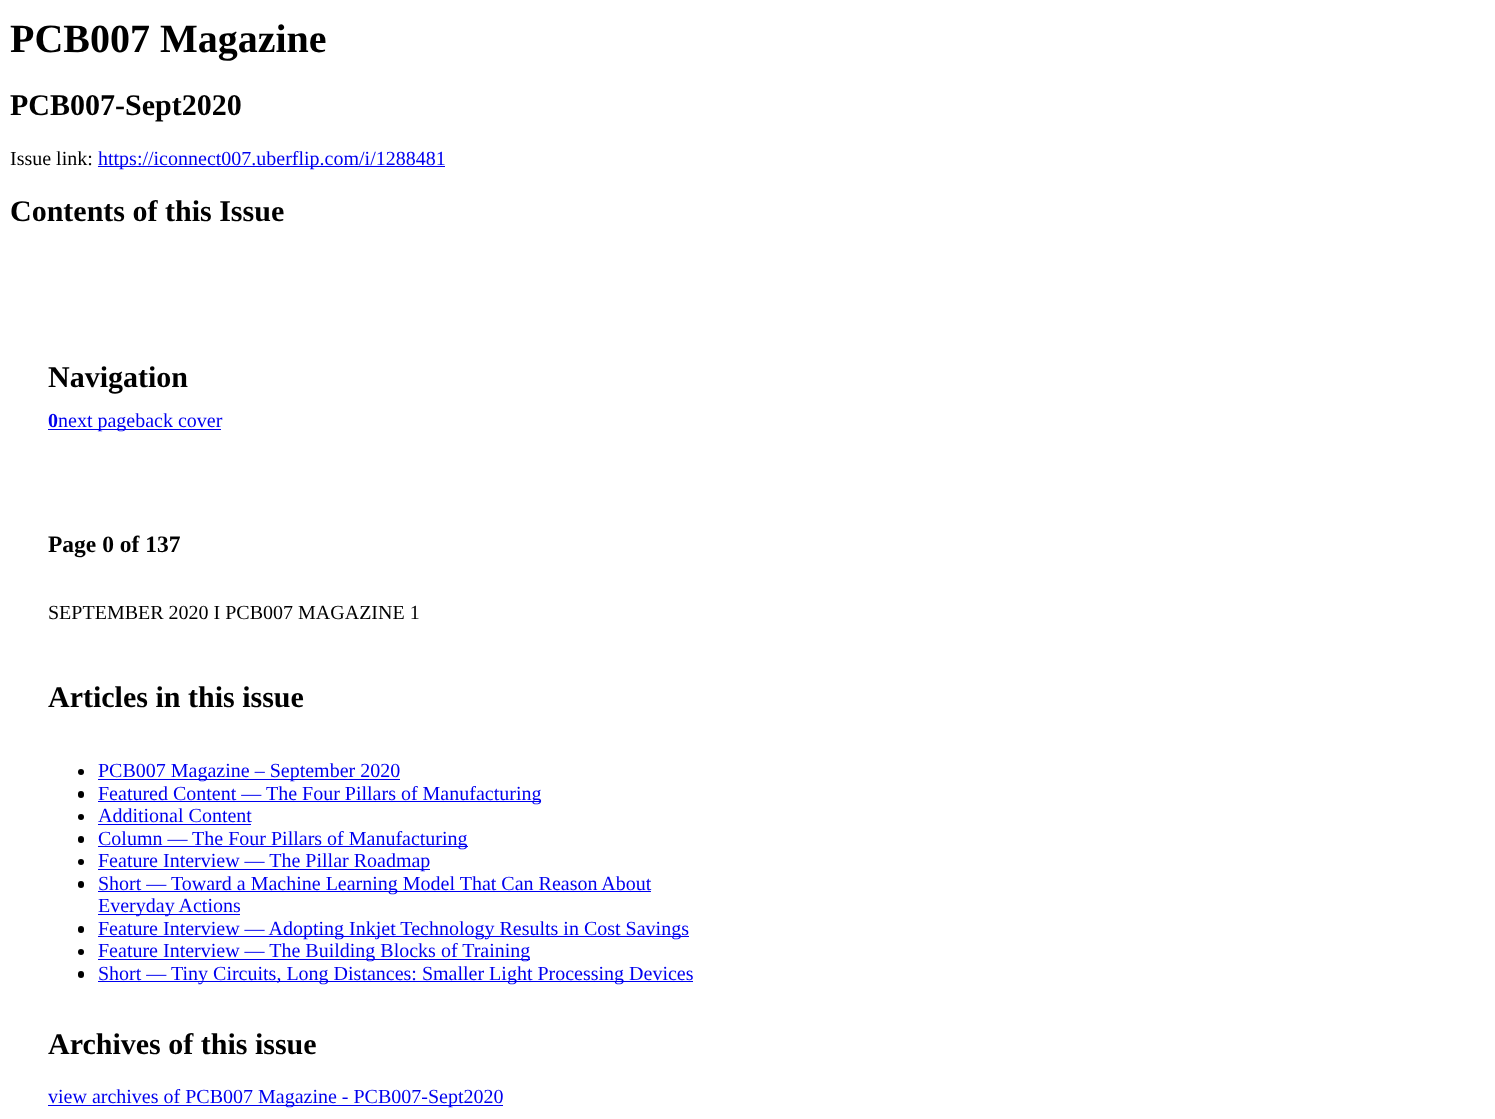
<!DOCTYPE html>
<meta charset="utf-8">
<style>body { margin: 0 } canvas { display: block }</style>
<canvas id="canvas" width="1495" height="1119"></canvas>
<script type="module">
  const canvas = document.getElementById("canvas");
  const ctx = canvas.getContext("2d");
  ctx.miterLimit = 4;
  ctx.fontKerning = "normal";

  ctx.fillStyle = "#ffffff";
  ctx.fillRect(0, 0, 1495, 1119);
  ctx.font = "bold 40px Liberation Serif";
  ctx.fillStyle = "#000000";
  ctx.fillText("PCB007 Magazine", 10, 52);
  ctx.font = "bold 30px Liberation Serif";
  ctx.fillText("PCB007-Sept2020", 10, 115);
  ctx.font = "20px Liberation Serif";
  ctx.fillText("Issue link:", 10, 165);
  ctx.fillStyle = "#0000ee";
  ctx.fillRect(98, 166, 347, 1);
  ctx.fillText("https://iconnect007.uberflip.com/i/1288481", 98, 165);
  ctx.font = "bold 30px Liberation Serif";
  ctx.fillStyle = "#000000";
  ctx.fillText("Contents of this Issue", 10, 221);
  ctx.fillText("Navigation", 48, 387);
  ctx.font = "bold 20px Liberation Serif";
  ctx.fillStyle = "#0000ee";
  ctx.fillText("0", 48, 427);
  ctx.fillRect(48, 429, 173, 1);
  ctx.font = "20px Liberation Serif";
  ctx.fillText("next pageback cover", 58, 427);
  ctx.font = "bold 23.5px Liberation Serif";
  ctx.fillStyle = "#000000";
  ctx.fillText("Page 0 of 137", 48, 552);
  ctx.font = "20px Liberation Serif";
  ctx.fillText("SEPTEMBER 2020 I PCB007 MAGAZINE 1", 48, 619);
  ctx.font = "bold 30px Liberation Serif";
  ctx.fillText("Articles in this issue", 48, 707);
  ctx.beginPath();
  ctx.arc(81, 772, 3, 0, Math.PI * 2);
  ctx.fill();
  ctx.fillStyle = "#0000ee";
  ctx.fillRect(98, 779, 302, 1);
  ctx.font = "20px Liberation Serif";
  ctx.fillText("PCB007 Magazine – September 2020", 98, 777);
  ctx.fillStyle = "#000000";
  ctx.beginPath();
  ctx.roundRect(78, 791, 6, 7, 3);
  ctx.fill();
  ctx.fillStyle = "#0000ee";
  ctx.fillRect(98, 801, 443, 1);
  ctx.fillText("Featured Content — The Four Pillars of Manufacturing", 98, 800);
  ctx.fillStyle = "#000000";
  ctx.beginPath();
  ctx.arc(81, 817, 3, 0, Math.PI * 2);
  ctx.fill();
  ctx.fillStyle = "#0000ee";
  ctx.fillText("Additional Content", 98, 822);
  ctx.fillRect(98, 824, 153, 1);
  ctx.fillStyle = "#000000";
  ctx.beginPath();
  ctx.roundRect(78, 836, 6, 7, 3);
  ctx.fill();
  ctx.fillStyle = "#0000ee";
  ctx.fillRect(98, 846, 370, 1);
  ctx.fillText("Column — The Four Pillars of Manufacturing", 98, 845);
  ctx.fillStyle = "#000000";
  ctx.beginPath();
  ctx.arc(81, 862, 3, 0, Math.PI * 2);
  ctx.fill();
  ctx.fillStyle = "#0000ee";
  ctx.fillRect(98, 869, 332, 1);
  ctx.fillText("Feature Interview — The Pillar Roadmap", 98, 867);
  ctx.fillStyle = "#000000";
  ctx.beginPath();
  ctx.roundRect(78, 881, 6, 7, 3);
  ctx.fill();
  ctx.fillStyle = "#0000ee";
  ctx.fillRect(98, 891, 553, 1);
  ctx.fillText("Short — Toward a Machine Learning Model That Can Reason About", 98, 890);
  ctx.fillRect(98, 914, 142, 1);
  ctx.fillText("Everyday Actions", 98, 912);
  ctx.fillStyle = "#000000";
  ctx.beginPath();
  ctx.roundRect(78, 926, 6, 7, 3);
  ctx.fill();
  ctx.fillStyle = "#0000ee";
  ctx.fillRect(98, 936, 591, 1);
  ctx.fillText("Feature Interview — Adopting Inkjet Technology Results in Cost Savings", 98, 935);
  ctx.fillStyle = "#000000";
  ctx.beginPath();
  ctx.arc(81, 952, 3, 0, Math.PI * 2);
  ctx.fill();
  ctx.fillStyle = "#0000ee";
  ctx.fillRect(98, 959, 432, 1);
  ctx.fillText("Feature Interview — The Building Blocks of Training", 98, 957);
  ctx.fillStyle = "#000000";
  ctx.beginPath();
  ctx.roundRect(78, 971, 6, 7, 3);
  ctx.fill();
  ctx.fillStyle = "#0000ee";
  ctx.fillRect(98, 981, 595, 1);
  ctx.fillText("Short — Tiny Circuits, Long Distances: Smaller Light Processing Devices", 98, 980);
  ctx.font = "bold 30px Liberation Serif";
  ctx.fillStyle = "#000000";
  ctx.fillText("Archives of this issue", 48, 1054);
  ctx.fillStyle = "#0000ee";
  ctx.fillRect(48, 1105, 455, 1);
  ctx.font = "20px Liberation Serif";
  ctx.fillText("view archives of PCB007 Magazine - PCB007-Sept2020", 48, 1103);
</script>
